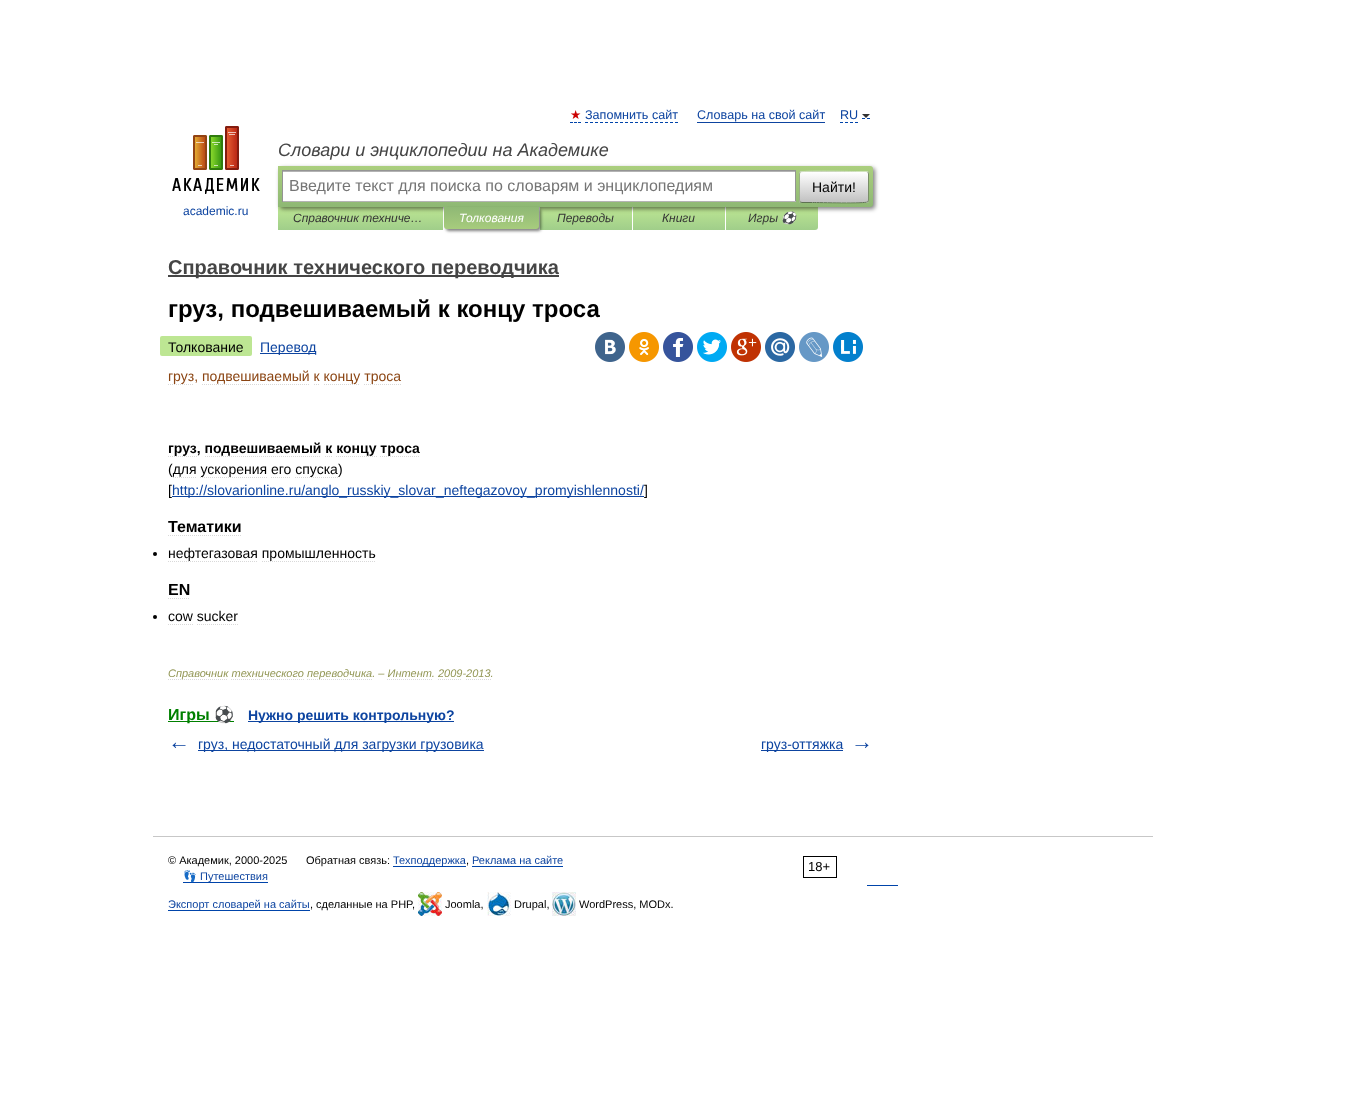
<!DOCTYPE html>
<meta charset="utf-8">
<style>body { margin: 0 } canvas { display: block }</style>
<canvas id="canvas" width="1356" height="1106"></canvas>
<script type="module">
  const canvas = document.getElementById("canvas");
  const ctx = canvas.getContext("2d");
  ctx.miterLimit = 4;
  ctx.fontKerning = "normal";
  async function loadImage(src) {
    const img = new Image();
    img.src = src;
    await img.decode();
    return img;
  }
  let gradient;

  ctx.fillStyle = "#ffffff";
  ctx.fillRect(0, 0, 1356, 1106);
  ctx.font = "12.6px DejaVu Sans";
  ctx.fillStyle = "#cc0000";
  ctx.fillText("★", 570, 119);
  ctx.beginPath();
  ctx.moveTo(570, 122.5);
  ctx.lineTo(573, 122.5);
  ctx.moveTo(574, 122.5);
  ctx.lineTo(577, 122.5);
  ctx.moveTo(578, 122.5);
  ctx.lineTo(581, 122.5);
  ctx.strokeStyle = "#0044aa";
  ctx.stroke();
  ctx.font = "12.6px Liberation Sans";
  ctx.fillStyle = "#0d44a0";
  ctx.fillText("Запомнить сайт", 585, 119);
  ctx.beginPath();
  ctx.moveTo(585, 122.5);
  ctx.lineTo(678, 122.5);
  ctx.setLineDash([3, 2]);
  ctx.stroke();
  ctx.fillText("Словарь на свой сайт", 697, 119);
  ctx.fillRect(697, 122, 128, 1);
  ctx.beginPath();
  ctx.moveTo(840, 122.5);
  ctx.lineTo(858, 122.5);
  ctx.stroke();
  ctx.beginPath();
  ctx.moveTo(862, 118.5);
  ctx.lineTo(865, 118.5);
  ctx.moveTo(867, 118.5);
  ctx.lineTo(870, 118.5);
  ctx.setLineDash([]);
  ctx.stroke();
  ctx.fillText("RU", 840, 119);
  ctx.fillStyle = "#333333";
  ctx.beginPath();
  ctx.moveTo(862, 114);
  ctx.lineTo(870, 114);
  ctx.lineTo(866, 118);
  ctx.closePath();
  ctx.fill();
  ctx.font = "italic 18px Liberation Sans";
  ctx.fillStyle = "#454545";
  ctx.fillText("Словари и энциклопедии на Академике", 278, 156);
  gradient = ctx.createLinearGradient(361, 207, 361, 230);
  gradient.addColorStop(0, "#bde693");
  gradient.addColorStop(1, "#a0ce8a");
  ctx.fillStyle = gradient;
  ctx.fillRect(278, 207, 165, 23);
  gradient = ctx.createLinearGradient(586, 207, 586, 230);
  gradient.addColorStop(0, "#bde693");
  gradient.addColorStop(1, "#a0ce8a");
  ctx.fillStyle = gradient;
  ctx.fillRect(540, 207, 92, 23);
  gradient = ctx.createLinearGradient(679, 207, 679, 230);
  gradient.addColorStop(0, "#bde693");
  gradient.addColorStop(1, "#a0ce8a");
  ctx.fillStyle = gradient;
  ctx.fillRect(633, 207, 92, 23);
  gradient = ctx.createLinearGradient(772, 207, 772, 230);
  gradient.addColorStop(0, "#bde693");
  gradient.addColorStop(1, "#a0ce8a");
  ctx.fillStyle = gradient;
  ctx.beginPath();
  ctx.roundRect(726, 207, 92, 23, [0, 0, 3, 0]);
  ctx.fill();
  ctx.fillStyle = "rgba(0, 0, 0, 0.5)";
  ctx.filter = "blur(2px)";
  ctx.beginPath();
  ctx.roundRect(280, 168, 595, 41, 3);
  ctx.fill();
  ctx.filter = "none";
  gradient = ctx.createLinearGradient(576, 166, 576, 207);
  gradient.addColorStop(0, "#abcf7e");
  gradient.addColorStop(1, "#8eb874");
  ctx.fillStyle = gradient;
  ctx.beginPath();
  ctx.roundRect(278, 166, 595, 41, [0, 3, 3, 0]);
  ctx.fill();
  ctx.fillStyle = "#ffffff";
  ctx.fillRect(283, 172, 512, 29);
  ctx.fillStyle = "#b3b3b3";
  ctx.fillRect(283, 171, 512, 1);
  ctx.fillStyle = "#949494";
  ctx.fillRect(282, 170, 514, 1);
  ctx.fillRect(795, 170, 1, 32);
  ctx.fillStyle = "#b4b4b4";
  ctx.fillRect(282, 201, 514, 1);
  ctx.fillStyle = "#949494";
  ctx.fillRect(282, 170, 1, 32);
  ctx.font = "16px Liberation Sans";
  ctx.fillStyle = "#757575";
  ctx.fillText("Введите текст для поиска по словарям и энциклопедиям", 289, 191);
  ctx.save();
  ctx.beginPath();
  ctx.roundRect(799, 171, 70, 32, 3);
  ctx.clip();
  gradient = ctx.createLinearGradient(834, 142, 834, 172);
  gradient.addColorStop(0, "#ffffff");
  gradient.addColorStop(1, "#c1c1c1");
  ctx.fillStyle = gradient;
  ctx.fillRect(799, 171, 70, 1);
  gradient = ctx.createLinearGradient(834, 172, 834, 202);
  gradient.addColorStop(0, "#ffffff");
  gradient.addColorStop(1, "#c1c1c1");
  ctx.fillStyle = gradient;
  ctx.fillRect(799, 172, 70, 30);
  gradient = ctx.createLinearGradient(834, 202, 834, 232);
  gradient.addColorStop(0, "#ffffff");
  gradient.addColorStop(1, "#c1c1c1");
  ctx.fillStyle = gradient;
  ctx.fillRect(799, 202, 70, 1);
  ctx.restore();
  ctx.beginPath();
  ctx.moveTo(800, 172);
  ctx.lineTo(800.5, 172);
  ctx.bezierCurveTo(802.5, 170.5, 849, 171.5, 855.5, 171.5);
  ctx.lineTo(866, 171.5);
  ctx.lineTo(868, 172);
  ctx.strokeStyle = "#d1e4bc";
  ctx.stroke();
  ctx.beginPath();
  ctx.moveTo(868, 172);
  ctx.bezierCurveTo(868, 172.5, 868.5, 173.5, 868.5, 174);
  ctx.lineTo(868.5, 200);
  ctx.bezierCurveTo(868.5, 200.5, 868, 201.5, 868, 202);
  ctx.strokeStyle = "#7a8e69";
  ctx.stroke();
  ctx.beginPath();
  ctx.moveTo(868, 202);
  ctx.lineTo(867.5, 202);
  ctx.bezierCurveTo(865.5, 203.5, 819, 202.5, 812.5, 202.5);
  ctx.lineTo(802, 202.5);
  ctx.lineTo(800, 202);
  ctx.strokeStyle = "#5d7250";
  ctx.stroke();
  ctx.beginPath();
  ctx.moveTo(800, 202);
  ctx.bezierCurveTo(800, 201.5, 799.5, 200.5, 799.5, 200);
  ctx.lineTo(799.5, 174);
  ctx.bezierCurveTo(799.5, 173.5, 800, 172.5, 800, 172);
  ctx.strokeStyle = "#9aae89";
  ctx.stroke();
  ctx.font = "14px Liberation Sans";
  ctx.fillStyle = "#000000";
  ctx.fillText("Найти!", 812, 192);
  ctx.drawImage(await loadImage("img1.png"), 172, 126, 88, 68);
  ctx.font = "12px Liberation Sans";
  ctx.fillStyle = "#0d44a0";
  ctx.fillText("academic.ru", 183, 215);
  ctx.font = "italic 12px Liberation Sans";
  ctx.fillStyle = "#353535";
  ctx.fillText("Справочник техниче…", 293, 222);
  ctx.fillStyle = "rgba(0, 0, 0, 0.5)";
  ctx.filter = "blur(1.5px)";
  ctx.beginPath();
  ctx.roundRect(446, 209, 95, 22, 3);
  ctx.fill();
  ctx.filter = "none";
  gradient = ctx.createLinearGradient(492, 207, 492, 229);
  gradient.addColorStop(0, "#8fb875");
  gradient.addColorStop(1, "#a7cc7d");
  ctx.fillStyle = gradient;
  ctx.beginPath();
  ctx.roundRect(444, 207, 95, 22, [0, 0, 3, 3]);
  ctx.fill();
  ctx.fillStyle = "#ffffff";
  ctx.fillText("Толкования", 459, 222);
  ctx.fillStyle = "#353535";
  ctx.fillText("Переводы", 557, 222);
  ctx.fillText("Книги", 662, 222);
  ctx.fillText("Игры", 748, 222);
  ctx.font = "italic 12px Noto Color Emoji";
  ctx.fillText("⚽", 781, 222);
  ctx.fillStyle = "#454545";
  ctx.fillRect(168, 275, 391, 2);
  ctx.font = "bold 20px Liberation Sans";
  ctx.fillText("Справочник технического переводчика", 168, 274);
  ctx.font = "bold 24px Liberation Sans";
  ctx.fillStyle = "#000000";
  ctx.fillText("груз, подвешиваемый к концу троса", 168, 317);
  ctx.fillStyle = "#bde693";
  ctx.beginPath();
  ctx.roundRect(168, 336, 84, 20, [0, 2, 2, 0]);
  ctx.fill();
  ctx.font = "14px Liberation Sans";
  ctx.fillStyle = "#000000";
  ctx.fillText("Толкование", 168, 352);
  ctx.fillStyle = "#bde693";
  ctx.beginPath();
  ctx.roundRect(160, 336, 8, 20, [2, 0, 0, 2]);
  ctx.fill();
  ctx.fillStyle = "#0d44a0";
  ctx.fillRect(260, 353, 56, 1);
  ctx.fillText("Перевод", 260, 352);
  ctx.drawImage(await loadImage("img2.png"), 595, 332, 30, 30);
  ctx.drawImage(await loadImage("img3.png"), 629, 332, 30, 30);
  ctx.drawImage(await loadImage("img4.png"), 663, 332, 30, 30);
  ctx.drawImage(await loadImage("img5.png"), 697, 332, 30, 30);
  ctx.drawImage(await loadImage("img6.png"), 731, 332, 30, 30);
  ctx.drawImage(await loadImage("img7.png"), 765, 332, 30, 30);
  ctx.drawImage(await loadImage("img8.png"), 799, 332, 30, 30);
  ctx.drawImage(await loadImage("img9.png"), 833, 332, 30, 30);
  ctx.fillStyle = "#8b4513";
  ctx.fillText("груз, подвешиваемый к концу троса", 168, 381);
  ctx.beginPath();
  ctx.moveTo(168, 384.5);
  ctx.lineTo(194, 384.5);
  ctx.strokeStyle = "#d9d9d9";
  ctx.setLineDash([1, 1]);
  ctx.stroke();
  ctx.beginPath();
  ctx.moveTo(202, 384.5);
  ctx.lineTo(310, 384.5);
  ctx.stroke();
  ctx.beginPath();
  ctx.moveTo(314, 384.5);
  ctx.lineTo(315, 384.5);
  ctx.moveTo(316, 384.5);
  ctx.lineTo(317, 384.5);
  ctx.moveTo(318, 384.5);
  ctx.lineTo(319, 384.5);
  ctx.setLineDash([]);
  ctx.stroke();
  ctx.beginPath();
  ctx.moveTo(324, 384.5);
  ctx.lineTo(360, 384.5);
  ctx.setLineDash([1, 1]);
  ctx.stroke();
  ctx.beginPath();
  ctx.moveTo(364, 384.5);
  ctx.lineTo(401, 384.5);
  ctx.stroke();
  ctx.font = "bold 14px Liberation Sans";
  ctx.fillStyle = "#000000";
  ctx.fillText("груз, подвешиваемый к концу троса", 168, 453);
  ctx.beginPath();
  ctx.moveTo(168, 456.5);
  ctx.lineTo(197, 456.5);
  ctx.stroke();
  ctx.beginPath();
  ctx.moveTo(205, 456.5);
  ctx.lineTo(321, 456.5);
  ctx.stroke();
  ctx.beginPath();
  ctx.moveTo(325, 456.5);
  ctx.lineTo(326, 456.5);
  ctx.moveTo(327, 456.5);
  ctx.lineTo(328, 456.5);
  ctx.moveTo(329, 456.5);
  ctx.lineTo(330, 456.5);
  ctx.moveTo(331, 456.5);
  ctx.lineTo(332, 456.5);
  ctx.setLineDash([]);
  ctx.stroke();
  ctx.beginPath();
  ctx.moveTo(336, 456.5);
  ctx.lineTo(377, 456.5);
  ctx.setLineDash([1, 1]);
  ctx.stroke();
  ctx.beginPath();
  ctx.moveTo(380, 456.5);
  ctx.lineTo(420, 456.5);
  ctx.stroke();
  ctx.font = "14px Liberation Sans";
  ctx.fillText("(для ускорения его спуска)", 168, 474);
  ctx.beginPath();
  ctx.moveTo(173, 477.5);
  ctx.lineTo(197, 477.5);
  ctx.stroke();
  ctx.beginPath();
  ctx.moveTo(200, 477.5);
  ctx.lineTo(267, 477.5);
  ctx.stroke();
  ctx.beginPath();
  ctx.moveTo(271, 477.5);
  ctx.lineTo(291, 477.5);
  ctx.stroke();
  ctx.beginPath();
  ctx.moveTo(295, 477.5);
  ctx.lineTo(338, 477.5);
  ctx.stroke();
  ctx.fillText("[", 168, 495);
  ctx.fillStyle = "#0d44a0";
  ctx.fillRect(172, 496, 175, 1);
  ctx.fillText("http://slovarionline.ru/anglo_", 172, 495);
  ctx.fillRect(347, 496, 51, 1);
  ctx.fillText("russkiy_slovar", 347, 495);
  ctx.fillRect(398, 496, 246, 1);
  ctx.fillText("_neftegazovoy_promyishlennosti/", 436, 495);
  ctx.fillStyle = "#000000";
  ctx.fillText("]", 644, 495);
  ctx.font = "bold 16px Liberation Sans";
  ctx.fillText("Тематики", 168, 532);
  ctx.beginPath();
  ctx.moveTo(168, 535.5);
  ctx.lineTo(242, 535.5);
  ctx.stroke();
  ctx.beginPath();
  ctx.arc(155, 554, 2, 0, Math.PI * 2);
  ctx.fill();
  ctx.font = "14px Liberation Sans";
  ctx.fillText("нефтегазовая промышленность", 168, 558);
  ctx.beginPath();
  ctx.moveTo(168, 561.5);
  ctx.lineTo(258, 561.5);
  ctx.stroke();
  ctx.beginPath();
  ctx.moveTo(262, 561.5);
  ctx.lineTo(376, 561.5);
  ctx.stroke();
  ctx.font = "bold 16px Liberation Sans";
  ctx.fillText("EN", 168, 595);
  ctx.beginPath();
  ctx.moveTo(168, 598.5);
  ctx.lineTo(190, 598.5);
  ctx.stroke();
  ctx.beginPath();
  ctx.arc(155, 617, 2, 0, Math.PI * 2);
  ctx.fill();
  ctx.font = "14px Liberation Sans";
  ctx.fillText("cow sucker", 168, 621);
  ctx.beginPath();
  ctx.moveTo(168, 624.5);
  ctx.lineTo(193, 624.5);
  ctx.stroke();
  ctx.beginPath();
  ctx.moveTo(197, 624.5);
  ctx.lineTo(238, 624.5);
  ctx.stroke();
  ctx.beginPath();
  ctx.moveTo(168, 679.5);
  ctx.lineTo(228, 679.5);
  ctx.stroke();
  ctx.font = "italic 11px Liberation Sans";
  ctx.fillStyle = "#939756";
  ctx.fillText("Справочник технического", 168, 677);
  ctx.beginPath();
  ctx.moveTo(231, 679.5);
  ctx.lineTo(304, 679.5);
  ctx.stroke();
  ctx.beginPath();
  ctx.moveTo(307, 679.5);
  ctx.lineTo(372, 679.5);
  ctx.stroke();
  ctx.fillText("переводчика. – Интент. 2009-2013.", 307, 677);
  ctx.beginPath();
  ctx.moveTo(387, 679.5);
  ctx.lineTo(432, 679.5);
  ctx.stroke();
  ctx.beginPath();
  ctx.moveTo(438, 679.5);
  ctx.lineTo(462, 679.5);
  ctx.moveTo(466, 679.5);
  ctx.lineTo(491, 679.5);
  ctx.stroke();
  ctx.fillStyle = "#008000";
  ctx.fillRect(168, 721, 66, 1);
  ctx.font = "bold 16px Liberation Sans";
  ctx.fillText("Игры", 168, 720);
  ctx.font = "bold 16px Noto Color Emoji";
  ctx.fillText("⚽", 214, 720);
  ctx.fillStyle = "#0d44a0";
  ctx.fillRect(248, 721, 206, 1);
  ctx.font = "bold 14px Liberation Sans";
  ctx.fillText("Нужно решить контрольную?", 248, 720);
  ctx.font = "bold 22px Liberation Sans";
  ctx.fillText("←", 168, 749);
  ctx.fillRect(198, 750, 286, 1);
  ctx.font = "14px Liberation Sans";
  ctx.fillText("груз, недостаточный для загрузки грузовика", 198, 749);
  ctx.fillRect(761, 750, 82, 1);
  ctx.fillText("груз-оттяжка", 761, 749);
  ctx.font = "bold 22px Liberation Sans";
  ctx.fillText("→", 851, 749);
  ctx.fillStyle = "#c7c7c7";
  ctx.fillRect(153, 836, 1000, 1);
  ctx.font = "11px Liberation Sans";
  ctx.fillStyle = "#000000";
  ctx.fillText("© Академик, 2000-2025", 168, 864);
  ctx.fillText("Обратная связь:", 306, 864);
  ctx.fillStyle = "#0044aa";
  ctx.fillRect(393, 866, 73, 1);
  ctx.fillStyle = "#0d44a0";
  ctx.fillText("Техподдержка", 393, 864);
  ctx.fillStyle = "#000000";
  ctx.fillText(",", 466, 864);
  ctx.fillStyle = "#0044aa";
  ctx.fillRect(472, 866, 91, 1);
  ctx.fillStyle = "#0d44a0";
  ctx.fillText("Реклама на сайте", 472, 864);
  ctx.strokeStyle = "#000000";
  ctx.setLineDash([]);
  ctx.strokeRect(803.5, 856.5, 33, 21);
  ctx.font = "13px Liberation Sans";
  ctx.fillStyle = "#000000";
  ctx.fillText("18+", 808, 871);
  ctx.fillStyle = "#0044aa";
  ctx.fillRect(183, 882, 85, 1);
  ctx.font = "11px Noto Color Emoji";
  ctx.fillStyle = "#0d44a0";
  ctx.fillText("👣", 183, 880);
  ctx.font = "11px Liberation Sans";
  ctx.fillText("Путешествия", 200, 880);
  ctx.fillStyle = "#0044aa";
  ctx.fillRect(867, 885, 31, 1);
  ctx.fillRect(168, 910, 142, 1);
  ctx.fillStyle = "#0d44a0";
  ctx.fillText("Экспорт словарей на сайты", 168, 908);
  ctx.fillStyle = "#000000";
  ctx.fillText(", сделанные на PHP,", 310, 908);
  ctx.drawImage(await loadImage("img10.png"), 418, 892, 24, 24);
  ctx.fillText("Joomla,", 445, 908);
  ctx.drawImage(await loadImage("img11.png"), 487, 892, 24, 24);
  ctx.fillText("Drupal,", 514, 908);
  ctx.drawImage(await loadImage("img12.png"), 552, 892, 24, 24);
  ctx.fillText("WordPress, MODx.", 579, 908);
</script>
